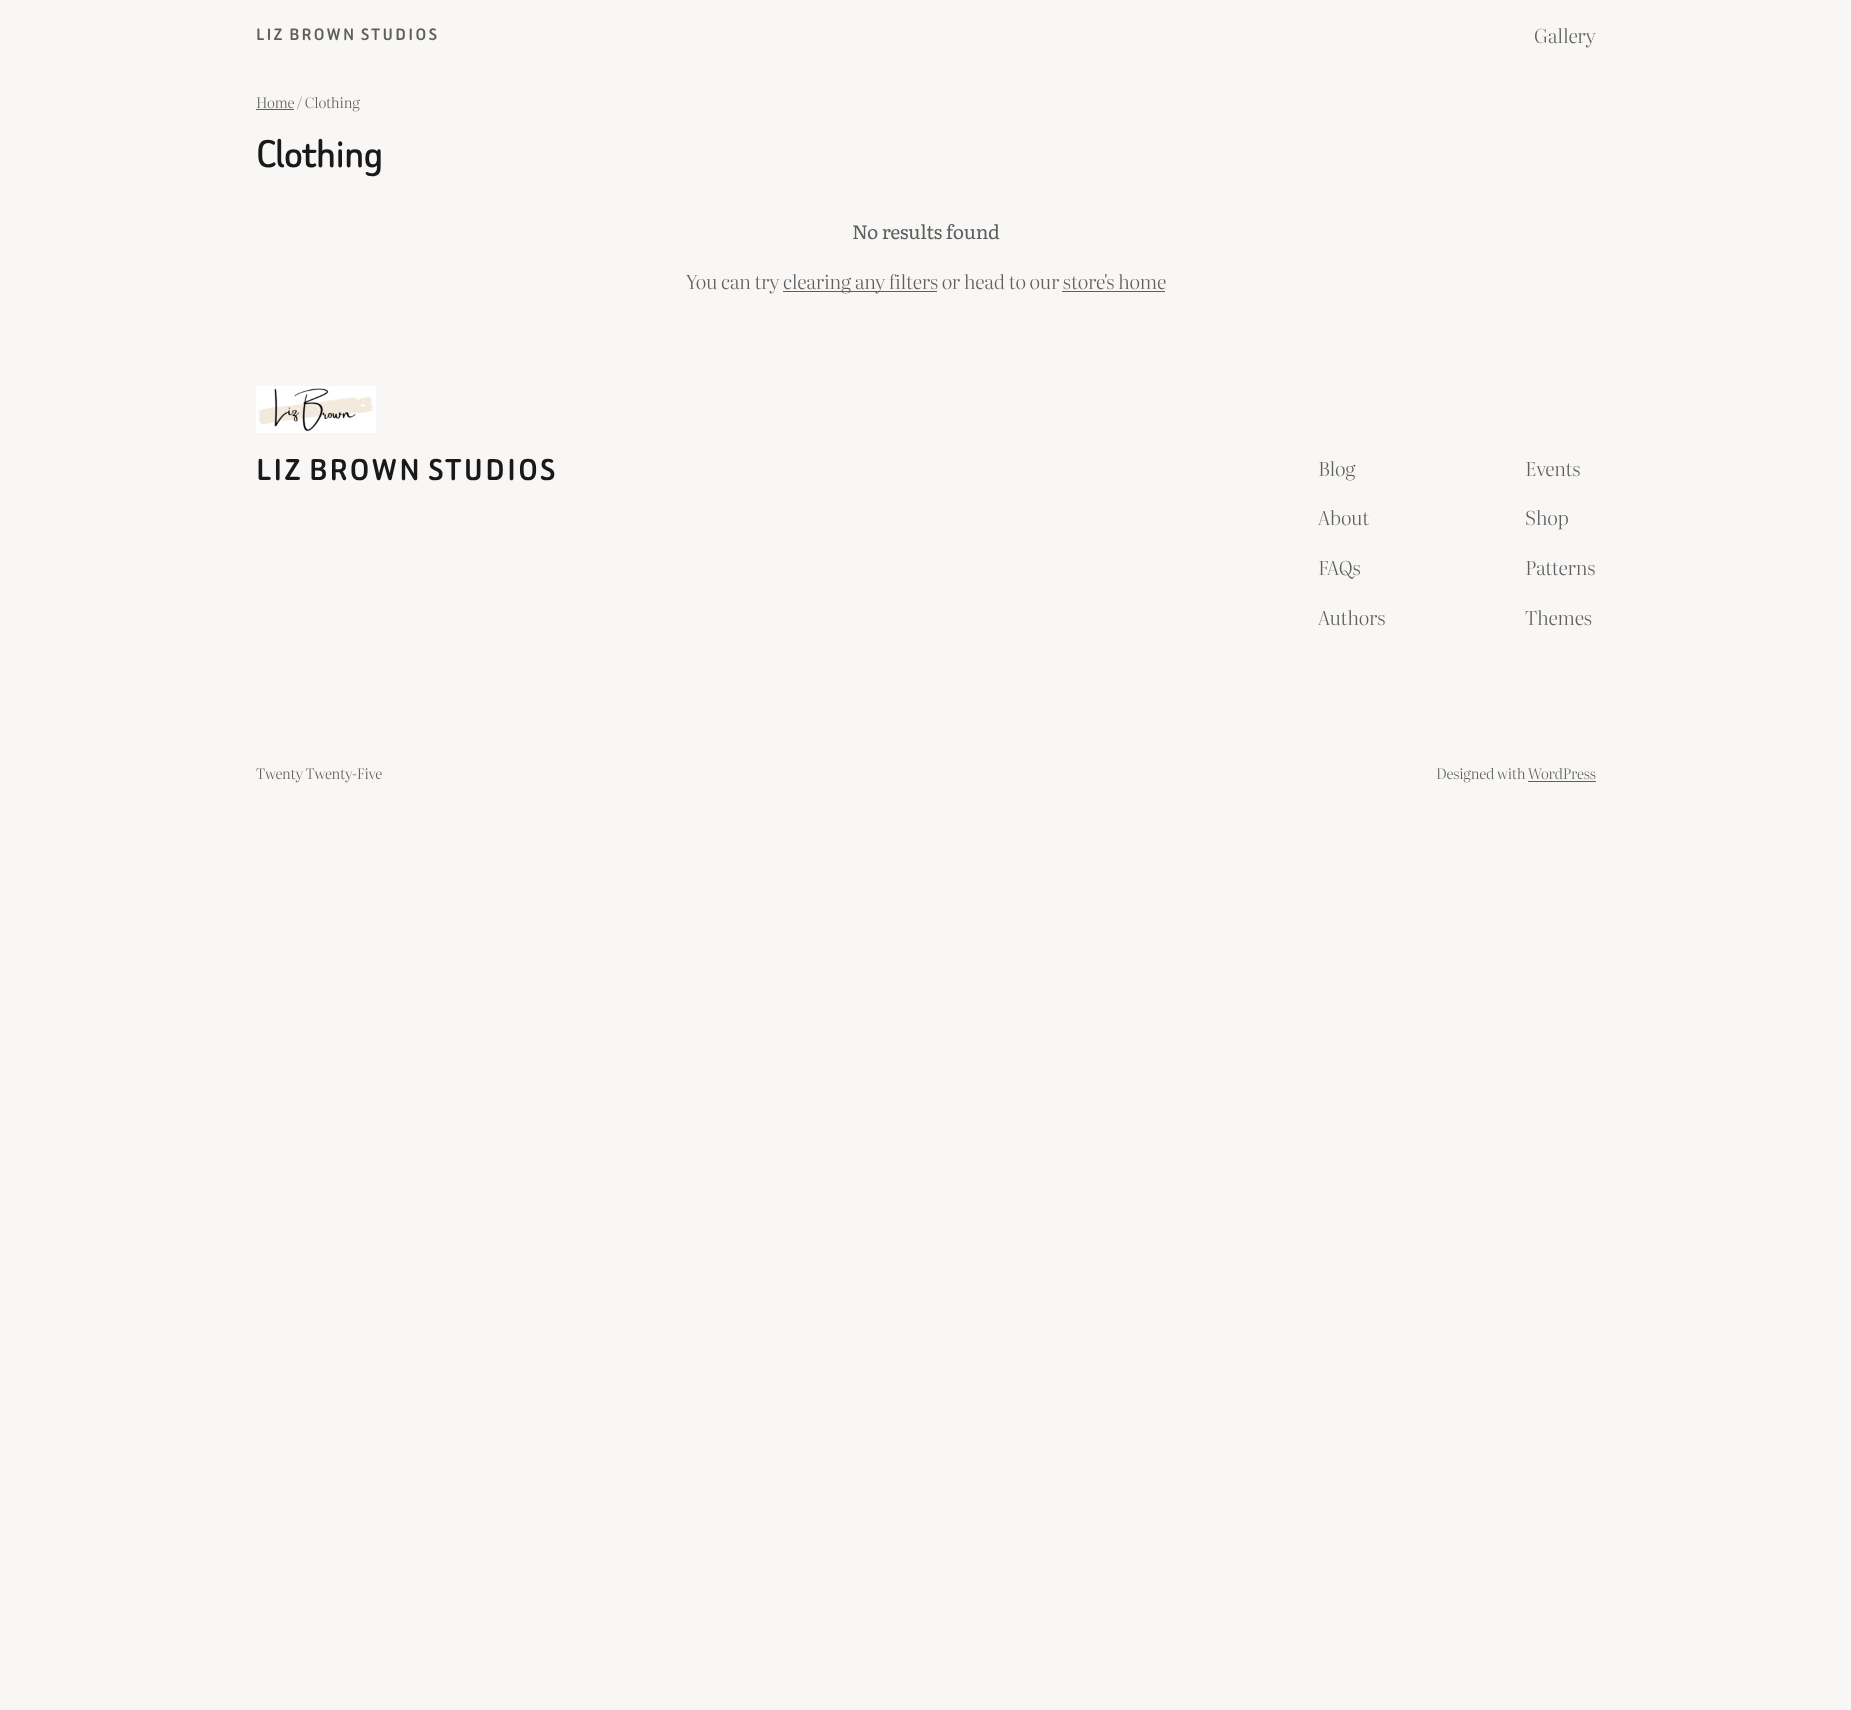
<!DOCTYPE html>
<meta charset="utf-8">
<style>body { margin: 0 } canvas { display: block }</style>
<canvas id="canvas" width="1851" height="1710"></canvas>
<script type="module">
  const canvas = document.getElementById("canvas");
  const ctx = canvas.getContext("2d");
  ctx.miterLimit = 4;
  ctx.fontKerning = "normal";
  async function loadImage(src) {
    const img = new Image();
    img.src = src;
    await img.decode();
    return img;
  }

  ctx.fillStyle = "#f8f7f5";
  ctx.fillRect(0, 0, 1851, 1710);
  ctx.letterSpacing = "2.4px";
  ctx.font = "600 19.25px Beiruti";
  ctx.fillStyle = "#5f5f5f";
  ctx.fillText("LIZ BROWN STUDIOS", 256, 40);
  ctx.letterSpacing = "-0.2px";
  ctx.font = "300 19.25px Literata";
  ctx.fillText("Gallery", 1534, 43);
  ctx.fillRect(256, 109, 38, 1);
  ctx.font = "300 14.4px Literata";
  ctx.fillText("Home / Clothing", 256, 108);
  ctx.letterSpacing = "-1px";
  ctx.font = "500 45px Beiruti";
  ctx.fillStyle = "#191919";
  ctx.fillText("Clothing", 256, 167);
  ctx.letterSpacing = "-0.2px";
  ctx.font = "19.25px Literata";
  ctx.fillStyle = "#5f5f5f";
  ctx.fillText("No results found", 852, 239);
  ctx.font = "300 19.25px Literata";
  ctx.fillText("You can try", 686, 289);
  ctx.fillRect(783, 291, 154, 1);
  ctx.fillText("clearing any filters or head to our store's home", 783, 289);
  ctx.fillRect(1062, 291, 103, 1);
  ctx.drawImage(await loadImage("img1.png"), 256, 386, 120, 47);
  ctx.letterSpacing = "2.4px";
  ctx.font = "600 35.25px Beiruti";
  ctx.fillStyle = "#191919";
  ctx.fillText("LIZ BROWN STUDIOS", 256, 480);
  ctx.letterSpacing = "-0.2px";
  ctx.font = "300 19.25px Literata";
  ctx.fillStyle = "#5f5f5f";
  ctx.fillText("Blog", 1318, 476);
  ctx.fillText("About", 1318, 525);
  ctx.fillText("FAQs", 1318, 575);
  ctx.fillText("Authors", 1318, 625);
  ctx.fillText("Events", 1525, 476);
  ctx.fillText("Shop", 1525, 525);
  ctx.fillText("Patterns", 1525, 575);
  ctx.fillText("Themes", 1525, 625);
  ctx.font = "300 14.4px Literata";
  ctx.fillText("Twenty Twenty-Five", 256, 779);
  ctx.fillText("Designed with WordPress", 1436, 779);
  ctx.fillRect(1528, 781, 68, 1);
</script>
